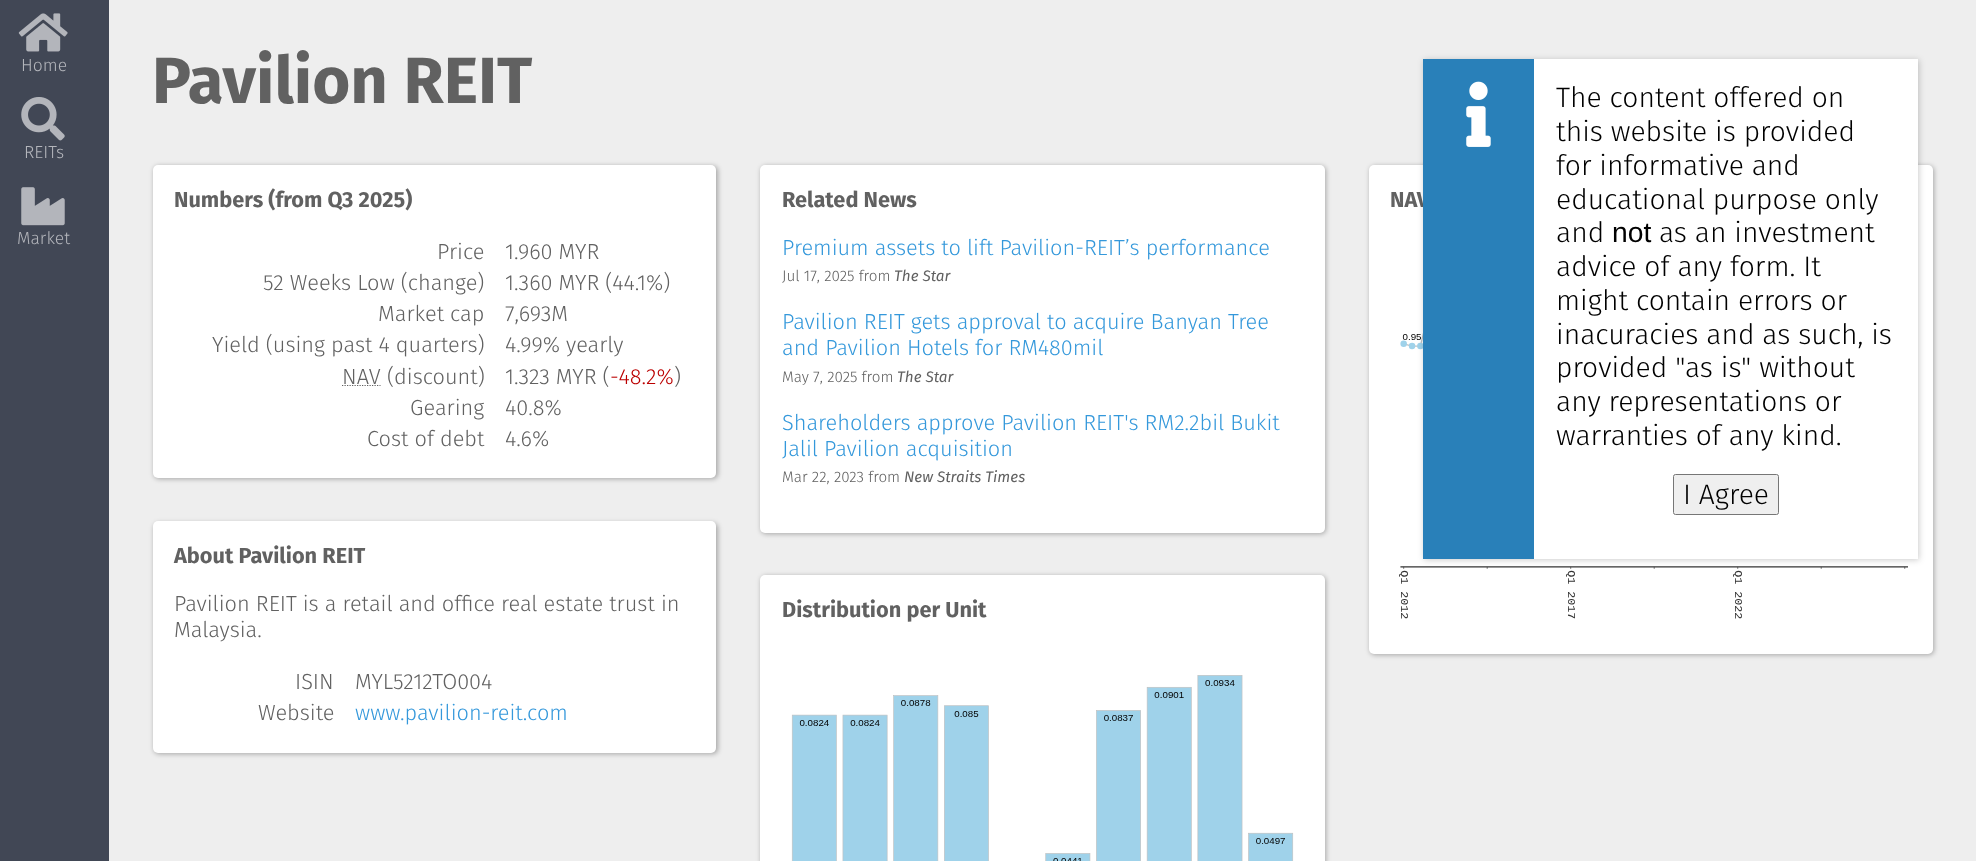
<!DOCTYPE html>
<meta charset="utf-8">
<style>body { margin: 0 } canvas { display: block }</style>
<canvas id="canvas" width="1976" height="861"></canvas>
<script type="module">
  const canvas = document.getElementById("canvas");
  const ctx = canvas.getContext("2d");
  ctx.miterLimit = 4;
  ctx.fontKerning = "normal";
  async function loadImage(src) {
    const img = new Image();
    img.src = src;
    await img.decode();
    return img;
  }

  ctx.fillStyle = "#eeeeee";
  ctx.fillRect(0, 0, 1976, 861);
  ctx.fillStyle = "#414755";
  ctx.fillRect(0, 0, 109, 861);
  ctx.drawImage(await loadImage("img1.png"), 18, 13, 50, 39);
  ctx.font = "300 17.5px Fira Sans";
  ctx.fillStyle = "#b3b5bb";
  ctx.fillText("Home", 21, 71);
  ctx.drawImage(await loadImage("img2.png"), 21, 97, 44, 44);
  ctx.fillText("REITs", 24, 158);
  ctx.drawImage(await loadImage("img3.png"), 21, 187, 44, 39);
  ctx.fillText("Market", 17, 244);
  ctx.font = "bold 65.25px Fira Sans";
  ctx.fillStyle = "#616161";
  ctx.fillText("Pavilion REIT", 152, 103);
  ctx.fillStyle = "rgba(0, 0, 0, 0.3)";
  ctx.filter = "blur(2.5px)";
  ctx.beginPath();
  ctx.roundRect(154, 166, 564, 313, 5);
  ctx.fill();
  ctx.filter = "none";
  ctx.fillStyle = "#ffffff";
  ctx.beginPath();
  ctx.roundRect(153, 165, 563, 313, 5);
  ctx.fill();
  ctx.font = "bold 21.75px Fira Sans";
  ctx.fillStyle = "#616161";
  ctx.fillText("Numbers (from Q3 2025)", 174, 207);
  ctx.font = "300 21.75px Fira Sans";
  ctx.fillText("Price", 437, 259);
  ctx.fillText("1.960 MYR", 505, 259);
  ctx.fillText("52 Weeks Low (change)", 263, 290);
  ctx.fillText("1.360 MYR (44.1%)", 505, 290);
  ctx.fillText("Market cap", 378, 321);
  ctx.fillText("7,693M", 505, 321);
  ctx.fillText("Yield (using past 4 quarters)", 212, 352);
  ctx.fillText("4.99% yearly", 505, 352);
  ctx.fillText("NAV", 342, 384);
  ctx.beginPath();
  ctx.moveTo(342, 385.5);
  ctx.lineTo(380.5, 385.5);
  ctx.strokeStyle = "#616161";
  ctx.lineWidth = 1.2;
  ctx.setLineDash([1.25, 1.25]);
  ctx.stroke();
  ctx.fillText("(discount)", 387, 384);
  ctx.fillText("1.323 MYR (", 505, 384);
  ctx.fillStyle = "#bb0000";
  ctx.fillText("-48.2%", 610, 384);
  ctx.fillStyle = "#616161";
  ctx.fillText(")", 674, 384);
  ctx.fillText("Gearing", 410, 415);
  ctx.fillText("40.8%", 505, 415);
  ctx.fillText("Cost of debt", 367, 446);
  ctx.fillText("4.6%", 505, 446);
  ctx.fillStyle = "rgba(0, 0, 0, 0.3)";
  ctx.filter = "blur(2.5px)";
  ctx.beginPath();
  ctx.roundRect(761, 166, 565, 368, 5);
  ctx.fill();
  ctx.filter = "none";
  ctx.fillStyle = "#ffffff";
  ctx.beginPath();
  ctx.roundRect(760, 165, 565, 368, 5);
  ctx.fill();
  ctx.font = "bold 21.75px Fira Sans";
  ctx.fillStyle = "#616161";
  ctx.fillText("Related News", 782, 207);
  ctx.font = "300 21.75px Fira Sans";
  ctx.fillStyle = "#3498db";
  ctx.fillText("Premium assets to lift Pavilion-REIT’s performance", 782, 255);
  ctx.font = "300 15.25px Fira Sans";
  ctx.fillStyle = "#616161";
  ctx.fillText("Jul 17, 2025 from", 782, 281);
  ctx.font = "italic 15.25px Fira Sans";
  ctx.fillText("The Star", 894, 281);
  ctx.font = "300 21.75px Fira Sans";
  ctx.fillStyle = "#3498db";
  ctx.fillText("Pavilion REIT gets approval to acquire Banyan Tree", 782, 329);
  ctx.fillText("and Pavilion Hotels for RM480mil", 782, 355);
  ctx.font = "300 15.25px Fira Sans";
  ctx.fillStyle = "#616161";
  ctx.fillText("May 7, 2025 from", 782, 382);
  ctx.font = "italic 15.25px Fira Sans";
  ctx.fillText("The Star", 897, 382);
  ctx.font = "300 21.75px Fira Sans";
  ctx.fillStyle = "#3498db";
  ctx.fillText("Shareholders approve Pavilion REIT's RM2.2bil Bukit", 782, 430);
  ctx.fillText("Jalil Pavilion acquisition", 782, 456);
  ctx.font = "300 15.25px Fira Sans";
  ctx.fillStyle = "#616161";
  ctx.fillText("Mar 22, 2023 from", 782, 482);
  ctx.font = "italic 15.25px Fira Sans";
  ctx.fillText("New Straits Times", 904, 482);
  ctx.fillStyle = "rgba(0, 0, 0, 0.3)";
  ctx.filter = "blur(2.5px)";
  ctx.beginPath();
  ctx.roundRect(1370, 166, 564, 489, 5);
  ctx.fill();
  ctx.filter = "none";
  ctx.fillStyle = "#ffffff";
  ctx.beginPath();
  ctx.roundRect(1369, 165, 564, 489, 5);
  ctx.fill();
  ctx.font = "bold 21.75px Fira Sans";
  ctx.fillStyle = "#616161";
  ctx.fillText("NAV", 1390, 207);
  ctx.drawImage(await loadImage("img4.png"), 1399, 333, 509, 286);
  ctx.fillStyle = "rgba(0, 0, 0, 0.3)";
  ctx.filter = "blur(2.5px)";
  ctx.beginPath();
  ctx.roundRect(154, 523, 564, 231, 5);
  ctx.fill();
  ctx.filter = "none";
  ctx.fillStyle = "#ffffff";
  ctx.beginPath();
  ctx.roundRect(153, 521, 563, 232, 5);
  ctx.fill();
  ctx.fillStyle = "#616161";
  ctx.fillText("About Pavilion REIT", 174, 563);
  ctx.font = "300 21.75px Fira Sans";
  ctx.fillText("Pavilion REIT is a retail and office real estate trust in", 174, 611);
  ctx.fillText("Malaysia.", 174, 637);
  ctx.fillText("ISIN", 295, 689);
  ctx.fillText("MYL5212TO004", 355, 689);
  ctx.fillText("Website", 258, 720);
  ctx.fillStyle = "#3498db";
  ctx.fillText("www.pavilion-reit.com", 355, 720);
  ctx.fillStyle = "rgba(0, 0, 0, 0.3)";
  ctx.filter = "blur(2.5px)";
  ctx.beginPath();
  ctx.roundRect(761, 576, 565, 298, 5);
  ctx.fill();
  ctx.filter = "none";
  ctx.fillStyle = "#ffffff";
  ctx.beginPath();
  ctx.roundRect(760, 575, 565, 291, 5);
  ctx.fill();
  ctx.font = "bold 21.75px Fira Sans";
  ctx.fillStyle = "#616161";
  ctx.fillText("Distribution per Unit", 782, 617);
  ctx.drawImage(await loadImage("img5.png"), 791, 675, 503, 186);
  ctx.fillStyle = "rgba(0, 0, 0, 0.2)";
  ctx.filter = "blur(3px)";
  ctx.beginPath();
  ctx.rect(1424, 60, 495, 500);
  ctx.fill();
  ctx.filter = "none";
  ctx.fillStyle = "#2980b9";
  ctx.fillRect(1423, 59, 111, 500);
  ctx.drawImage(await loadImage("img6.png"), 1466, 81, 25, 66);
  ctx.fillStyle = "#ffffff";
  ctx.fillRect(1534, 59, 384, 500);
  ctx.font = "300 28.25px Fira Sans";
  ctx.fillStyle = "#000000";
  ctx.fillText("The content offered on", 1556, 107);
  ctx.fillText("this website is provided", 1556, 141);
  ctx.fillText("for informative and", 1556, 175);
  ctx.fillText("educational purpose only", 1556, 209);
  ctx.fillText("and", 1556, 242);
  ctx.font = "28.25px Liberation Sans";
  ctx.fillText("not", 1612, 242);
  ctx.font = "300 28.25px Fira Sans";
  ctx.fillText("as an investment", 1659, 242);
  ctx.fillText("advice of any form. It", 1556, 276);
  ctx.fillText("might contain errors or", 1556, 310);
  ctx.fillText("inacuracies and as such, is", 1556, 344);
  ctx.fillText("provided \"as is\" without", 1556, 377);
  ctx.fillText("any representations or", 1556, 411);
  ctx.fillText("warranties of any kind.", 1556, 445);
  ctx.fillStyle = "#efefef";
  ctx.beginPath();
  ctx.roundRect(1673.5, 474.5, 105, 40, 2);
  ctx.fill();
  ctx.strokeStyle = "#767676";
  ctx.lineWidth = 1;
  ctx.setLineDash([]);
  ctx.stroke();
  ctx.fillStyle = "#000000";
  ctx.fillText("I Agree", 1683, 504);
</script>
